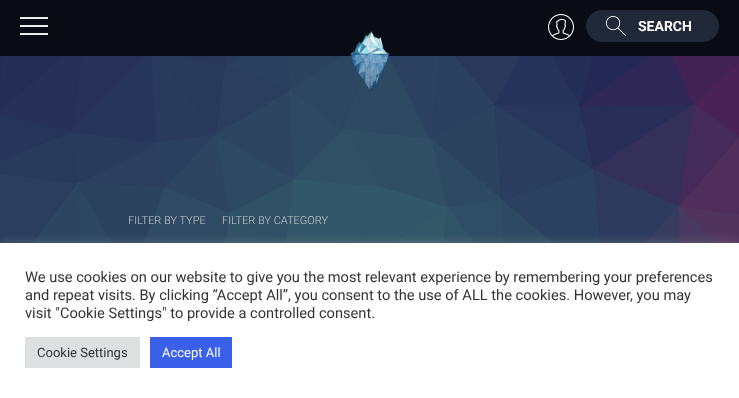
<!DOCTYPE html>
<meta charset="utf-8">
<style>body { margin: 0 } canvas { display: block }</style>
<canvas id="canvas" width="739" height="398"></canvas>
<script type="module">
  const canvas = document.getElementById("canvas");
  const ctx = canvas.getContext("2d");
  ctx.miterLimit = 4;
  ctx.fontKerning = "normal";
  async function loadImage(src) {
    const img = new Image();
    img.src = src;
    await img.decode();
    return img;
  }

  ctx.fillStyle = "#ffffff";
  ctx.fillRect(0, 0, 739, 398);
  ctx.fillStyle = "#090c14";
  ctx.fillRect(0, 0, 739, 56);
  ctx.fillStyle = "#eeeeee";
  ctx.fillRect(20, 17, 28, 2);
  ctx.fillRect(20, 25, 28, 2);
  ctx.fillRect(20, 33, 28, 2);
  ctx.drawImage(await loadImage("img1.png"), 548, 14, 26, 26);
  ctx.fillStyle = "#212837";
  ctx.beginPath();
  ctx.roundRect(586, 10, 133, 32, 16);
  ctx.fill();
  ctx.drawImage(await loadImage("img2.png"), 606, 16, 20, 20);
  ctx.font = "bold 14px Roboto";
  ctx.fillStyle = "#ffffff";
  ctx.fillText("SEARCH", 638, 31);
  ctx.drawImage(await loadImage("img4.png"), 0, 56, 739, 187);
  ctx.drawImage(await loadImage("img3.png"), 350, 31, 40, 60);
  ctx.font = "300 11px Roboto";
  ctx.fillStyle = "#cccccc";
  ctx.fillText("FILTER BY TYPE", 128, 224);
  ctx.fillText("FILTER BY CATEGORY", 222, 224);
  ctx.fillStyle = "rgba(172, 171, 171, 0.3)";
  ctx.filter = "blur(5px)";
  ctx.beginPath();
  ctx.rect(0, 242, 739, 155);
  ctx.fill();
  ctx.filter = "none";
  ctx.fillStyle = "#ffffff";
  ctx.fillRect(0, 243, 739, 155);
  ctx.font = "14.65px Roboto";
  ctx.fillStyle = "#333333";
  ctx.fillText("We use cookies on our website to give you the most relevant experience by remembering your preferences", 25, 282);
  ctx.fillText("and repeat visits. By clicking “Accept All”, you consent to the use of ALL the cookies. However, you may", 25, 300);
  ctx.fillText("visit \"Cookie Settings\" to provide a controlled consent.", 25, 318);
  ctx.fillStyle = "#dedfe0";
  ctx.fillRect(25, 337, 115, 31);
  ctx.font = "13px Roboto";
  ctx.fillStyle = "#333333";
  ctx.fillText("Cookie Settings", 37, 357);
  ctx.fillStyle = "#3a60ea";
  ctx.fillRect(150, 337, 82, 31);
  ctx.fillStyle = "#ffffff";
  ctx.fillText("Accept All", 162, 357);
</script>
